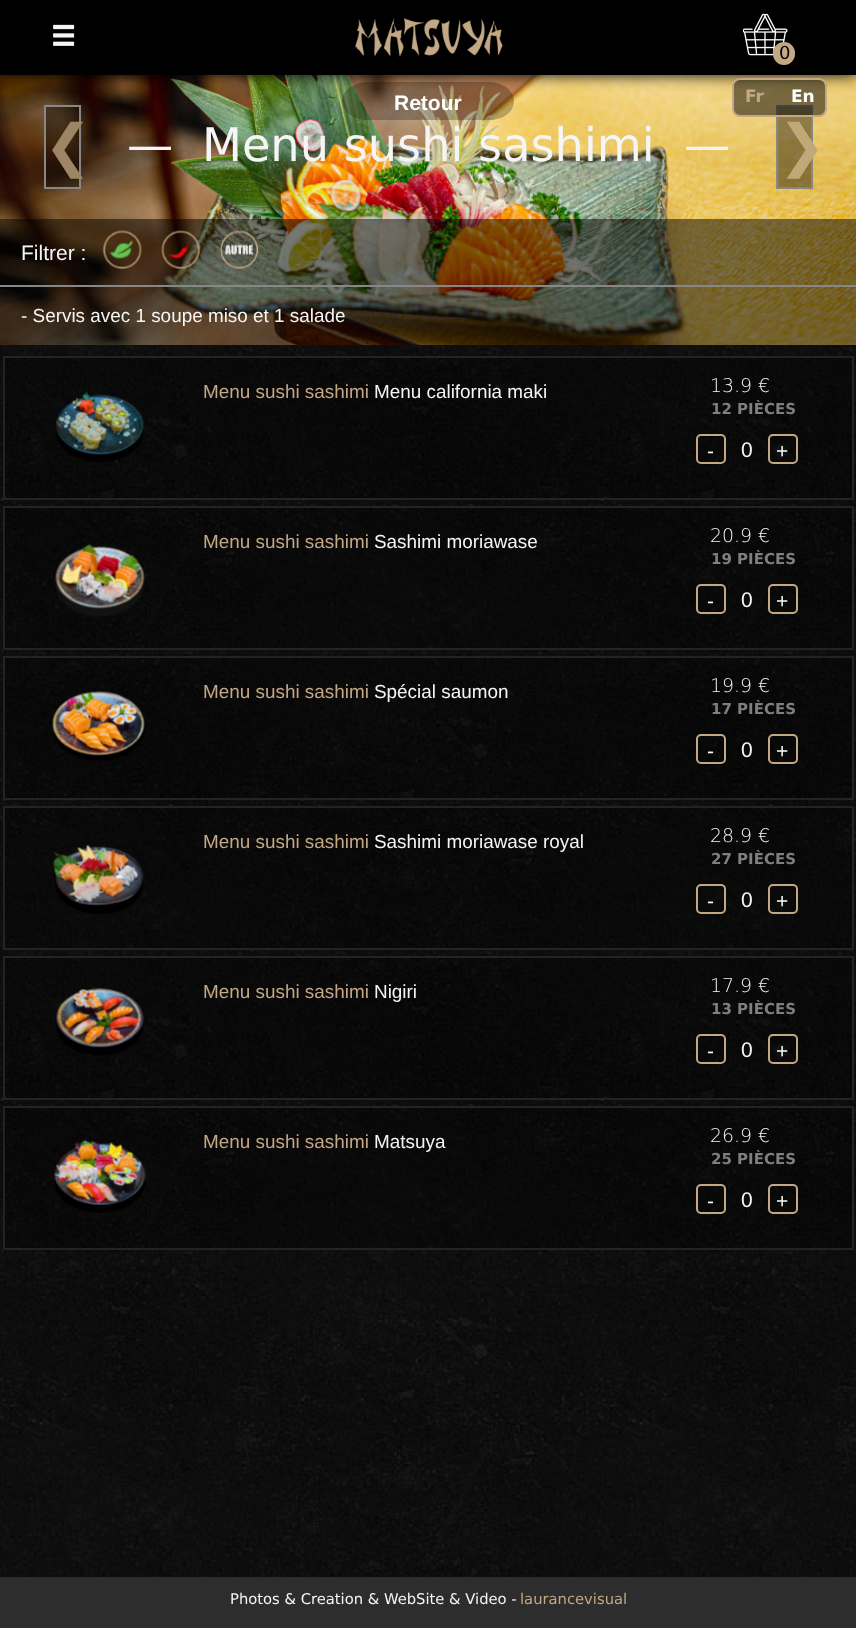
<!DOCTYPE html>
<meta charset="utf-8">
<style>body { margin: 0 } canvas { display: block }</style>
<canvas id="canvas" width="856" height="1628"></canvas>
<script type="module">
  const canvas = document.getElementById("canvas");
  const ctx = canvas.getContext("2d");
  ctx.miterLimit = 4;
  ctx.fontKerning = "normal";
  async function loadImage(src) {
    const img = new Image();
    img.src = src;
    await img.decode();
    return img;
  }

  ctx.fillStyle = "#ffffff";
  ctx.fillRect(0, 0, 856, 1628);
  ctx.drawImage(await loadImage("img1.png"), 0, 345, 856, 1232);
  ctx.drawImage(await loadImage("img5.png"), 0, 75, 856, 270);
  ctx.fillStyle = "rgba(0, 0, 0, 0.25)";
  ctx.beginPath();
  ctx.moveTo(368, 82);
  ctx.lineTo(489, 82);
  ctx.bezierCurveTo(503, 82, 514, 91, 514, 101);
  ctx.bezierCurveTo(514, 112, 503, 120, 489, 120);
  ctx.lineTo(368, 120);
  ctx.bezierCurveTo(354, 120, 342, 112, 342, 101);
  ctx.bezierCurveTo(342, 91, 354, 82, 368, 82);
  ctx.closePath();
  ctx.fill();
  ctx.fillStyle = "#000000";
  ctx.filter = "blur(7.5px)";
  ctx.beginPath();
  ctx.rect(0, 0, 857, 75);
  ctx.fill();
  ctx.filter = "none";
  ctx.fillRect(0, 0, 856, 75);
  ctx.drawImage(await loadImage("img2.png"), 355, 18, 148, 39);
  ctx.drawImage(await loadImage("img3.png"), 53, 24, 22, 22);
  ctx.drawImage(await loadImage("img4.png"), 743, 13, 45, 43);
  ctx.fillStyle = "#c4a886";
  ctx.beginPath();
  ctx.roundRect(773, 42, 22, 23, 11);
  ctx.fill();
  ctx.font = "18px DejaVu Sans";
  ctx.fillStyle = "#000000";
  ctx.fillText("0", 779, 59);
  ctx.fillStyle = "rgba(0, 0, 0, 0.4)";
  ctx.beginPath();
  ctx.rect(777, 106, 35, 82);
  ctx.fill();
  ctx.strokeStyle = "#878787";
  ctx.lineWidth = 2;
  ctx.stroke();
  ctx.fillStyle = "rgba(0, 0, 0, 0.5)";
  ctx.beginPath();
  ctx.roundRect(733, 79, 93, 37, 7);
  ctx.fill();
  ctx.strokeStyle = "#c4a886";
  ctx.stroke();
  ctx.font = "bold 17px DejaVu Sans";
  ctx.fillStyle = "#c4a886";
  ctx.fillText("Fr", 745, 102);
  ctx.fillStyle = "#ffffff";
  ctx.fillText("En", 791, 102);
  ctx.font = "bold 21px Liberation Sans";
  ctx.fillText("Retour", 394, 110);
  ctx.fillStyle = "rgba(0, 0, 0, 0.4)";
  ctx.beginPath();
  ctx.rect(45, 106, 35, 82);
  ctx.fill();
  ctx.strokeStyle = "#878787";
  ctx.stroke();
  ctx.font = "57px DejaVu Sans";
  ctx.fillStyle = "#9d8566";
  ctx.fillText("❮", 44, 165);
  ctx.font = "46.25px DejaVu Sans";
  ctx.fillStyle = "#f5f5f5";
  ctx.fillText("—", 127, 161);
  ctx.fillText("Menu sushi sashimi", 202, 161);
  ctx.fillText("—", 684, 161);
  ctx.font = "57px DejaVu Sans";
  ctx.fillStyle = "#c1a879";
  ctx.fillText("❯", 778, 165);
  ctx.fillStyle = "rgba(0, 0, 0, 0.5)";
  ctx.fillRect(0, 219, 856, 126);
  ctx.fillStyle = "#878787";
  ctx.fillRect(0, 285, 856, 2);
  ctx.font = "21px Liberation Sans";
  ctx.fillStyle = "#f5f5f5";
  ctx.fillText("Filtrer :", 21, 260);
  ctx.drawImage(await loadImage("img6.png"), 102, 230, 40, 40);
  ctx.drawImage(await loadImage("img7.png"), 161, 230, 40, 40);
  ctx.drawImage(await loadImage("img8.png"), 220, 230, 39, 40);
  ctx.font = "18.9px Liberation Sans";
  ctx.fillText("- Servis avec 1 soupe miso et 1 salade", 21, 322);
  ctx.fillStyle = "rgba(0, 0, 0, 0.3)";
  ctx.fillRect(5, 358, 636, 140);
  ctx.fillStyle = "#232323";
  ctx.fillRect(3, 356, 851, 2);
  ctx.fillRect(3, 498, 638, 2);
  ctx.fillRect(3, 356, 2, 144);
  ctx.drawImage(await loadImage("img9.png"), 55, 391, 89, 71);
  ctx.fillStyle = "#c4a886";
  ctx.fillText("Menu sushi sashimi", 203, 398);
  ctx.fillStyle = "#f5f5f5";
  ctx.fillText("Menu california maki", 374, 398);
  ctx.fillStyle = "rgba(0, 0, 0, 0.3)";
  ctx.fillRect(641, 358, 211, 140);
  ctx.fillStyle = "#232323";
  ctx.fillRect(852, 356, 2, 144);
  ctx.fillRect(641, 498, 213, 2);
  ctx.font = "200 18.9px DejaVu Sans";
  ctx.fillStyle = "#f5f5f5";
  ctx.fillText("13.9 €", 710, 392);
  ctx.font = "bold 15px DejaVu Sans";
  ctx.fillStyle = "#7f7f7f";
  ctx.fillText("12 PIÈCES", 711, 414);
  ctx.beginPath();
  ctx.roundRect(697, 435, 28, 28, 4);
  ctx.strokeStyle = "#c4a886";
  ctx.stroke();
  ctx.font = "21px Liberation Sans";
  ctx.fillStyle = "#f5f5f5";
  ctx.fillText("-", 707, 458);
  ctx.fillText("0", 741, 457);
  ctx.beginPath();
  ctx.roundRect(769, 435, 28, 28, 4);
  ctx.stroke();
  ctx.fillText("+", 776, 458);
  ctx.fillStyle = "rgba(0, 0, 0, 0.3)";
  ctx.fillRect(5, 508, 636, 140);
  ctx.fillStyle = "#232323";
  ctx.fillRect(3, 506, 851, 2);
  ctx.fillRect(3, 648, 638, 2);
  ctx.fillRect(3, 506, 2, 144);
  ctx.font = "18.9px Liberation Sans";
  ctx.fillStyle = "#c4a886";
  ctx.fillText("Menu sushi sashimi", 203, 548);
  ctx.fillStyle = "#f5f5f5";
  ctx.fillText("Sashimi moriawase", 374, 548);
  ctx.drawImage(await loadImage("img10.png"), 55, 544, 90, 72);
  ctx.fillStyle = "rgba(0, 0, 0, 0.3)";
  ctx.fillRect(641, 508, 211, 140);
  ctx.fillStyle = "#232323";
  ctx.fillRect(852, 506, 2, 144);
  ctx.fillRect(641, 648, 213, 2);
  ctx.font = "200 18.9px DejaVu Sans";
  ctx.fillStyle = "#f5f5f5";
  ctx.fillText("20.9 €", 710, 542);
  ctx.font = "bold 15px DejaVu Sans";
  ctx.fillStyle = "#7f7f7f";
  ctx.fillText("19 PIÈCES", 711, 564);
  ctx.beginPath();
  ctx.roundRect(697, 585, 28, 28, 4);
  ctx.stroke();
  ctx.font = "21px Liberation Sans";
  ctx.fillStyle = "#f5f5f5";
  ctx.fillText("-", 707, 608);
  ctx.fillText("0", 741, 607);
  ctx.beginPath();
  ctx.roundRect(769, 585, 28, 28, 4);
  ctx.stroke();
  ctx.fillText("+", 776, 608);
  ctx.fillStyle = "rgba(0, 0, 0, 0.3)";
  ctx.fillRect(5, 658, 636, 140);
  ctx.fillStyle = "#232323";
  ctx.fillRect(3, 656, 851, 2);
  ctx.fillRect(3, 798, 638, 2);
  ctx.fillRect(3, 656, 2, 144);
  ctx.drawImage(await loadImage("img11.png"), 52, 691, 93, 70);
  ctx.font = "18.9px Liberation Sans";
  ctx.fillStyle = "#c4a886";
  ctx.fillText("Menu sushi sashimi", 203, 698);
  ctx.fillStyle = "#f5f5f5";
  ctx.fillText("Spécial saumon", 374, 698);
  ctx.fillStyle = "rgba(0, 0, 0, 0.3)";
  ctx.fillRect(641, 658, 211, 140);
  ctx.fillStyle = "#232323";
  ctx.fillRect(852, 656, 2, 144);
  ctx.fillRect(641, 798, 213, 2);
  ctx.font = "200 18.9px DejaVu Sans";
  ctx.fillStyle = "#f5f5f5";
  ctx.fillText("19.9 €", 710, 692);
  ctx.font = "bold 15px DejaVu Sans";
  ctx.fillStyle = "#7f7f7f";
  ctx.fillText("17 PIÈCES", 711, 714);
  ctx.beginPath();
  ctx.roundRect(697, 735, 28, 28, 4);
  ctx.stroke();
  ctx.font = "21px Liberation Sans";
  ctx.fillStyle = "#f5f5f5";
  ctx.fillText("-", 707, 758);
  ctx.fillText("0", 741, 757);
  ctx.beginPath();
  ctx.roundRect(769, 735, 28, 28, 4);
  ctx.stroke();
  ctx.fillText("+", 776, 758);
  ctx.fillStyle = "rgba(0, 0, 0, 0.3)";
  ctx.fillRect(5, 808, 636, 140);
  ctx.fillStyle = "#232323";
  ctx.fillRect(3, 806, 851, 2);
  ctx.fillRect(3, 948, 638, 2);
  ctx.fillRect(3, 806, 2, 144);
  ctx.font = "18.9px Liberation Sans";
  ctx.fillStyle = "#c4a886";
  ctx.fillText("Menu sushi sashimi", 203, 848);
  ctx.fillStyle = "#f5f5f5";
  ctx.fillText("Sashimi moriawase royal", 374, 848);
  ctx.drawImage(await loadImage("img12.png"), 53, 845, 91, 69);
  ctx.fillStyle = "rgba(0, 0, 0, 0.3)";
  ctx.fillRect(641, 808, 211, 140);
  ctx.fillStyle = "#232323";
  ctx.fillRect(852, 806, 2, 144);
  ctx.fillRect(641, 948, 213, 2);
  ctx.font = "200 18.9px DejaVu Sans";
  ctx.fillStyle = "#f5f5f5";
  ctx.fillText("28.9 €", 710, 842);
  ctx.font = "bold 15px DejaVu Sans";
  ctx.fillStyle = "#7f7f7f";
  ctx.fillText("27 PIÈCES", 711, 864);
  ctx.beginPath();
  ctx.roundRect(697, 885, 28, 28, 4);
  ctx.stroke();
  ctx.font = "21px Liberation Sans";
  ctx.fillStyle = "#f5f5f5";
  ctx.fillText("-", 707, 908);
  ctx.fillText("0", 741, 907);
  ctx.beginPath();
  ctx.roundRect(769, 885, 28, 28, 4);
  ctx.stroke();
  ctx.fillText("+", 776, 908);
  ctx.fillStyle = "rgba(0, 0, 0, 0.3)";
  ctx.fillRect(5, 958, 636, 140);
  ctx.fillStyle = "#232323";
  ctx.fillRect(3, 956, 851, 2);
  ctx.fillRect(3, 1098, 638, 2);
  ctx.fillRect(3, 956, 2, 144);
  ctx.drawImage(await loadImage("img13.png"), 56, 988, 88, 68);
  ctx.font = "18.9px Liberation Sans";
  ctx.fillStyle = "#c4a886";
  ctx.fillText("Menu sushi sashimi", 203, 998);
  ctx.fillStyle = "#f5f5f5";
  ctx.fillText("Nigiri", 374, 998);
  ctx.fillStyle = "rgba(0, 0, 0, 0.3)";
  ctx.fillRect(641, 958, 211, 140);
  ctx.fillStyle = "#232323";
  ctx.fillRect(852, 956, 2, 144);
  ctx.fillRect(641, 1098, 213, 2);
  ctx.font = "200 18.9px DejaVu Sans";
  ctx.fillStyle = "#f5f5f5";
  ctx.fillText("17.9 €", 710, 992);
  ctx.font = "bold 15px DejaVu Sans";
  ctx.fillStyle = "#7f7f7f";
  ctx.fillText("13 PIÈCES", 711, 1014);
  ctx.beginPath();
  ctx.roundRect(697, 1035, 28, 28, 4);
  ctx.stroke();
  ctx.font = "21px Liberation Sans";
  ctx.fillStyle = "#f5f5f5";
  ctx.fillText("-", 707, 1058);
  ctx.fillText("0", 741, 1057);
  ctx.beginPath();
  ctx.roundRect(769, 1035, 28, 28, 4);
  ctx.stroke();
  ctx.fillText("+", 776, 1058);
  ctx.fillStyle = "rgba(0, 0, 0, 0.3)";
  ctx.fillRect(5, 1108, 636, 140);
  ctx.fillStyle = "#232323";
  ctx.fillRect(3, 1106, 851, 2);
  ctx.fillRect(3, 1248, 638, 2);
  ctx.fillRect(3, 1106, 2, 144);
  ctx.drawImage(await loadImage("img14.png"), 54, 1140, 92, 73);
  ctx.font = "18.9px Liberation Sans";
  ctx.fillStyle = "#c4a886";
  ctx.fillText("Menu sushi sashimi", 203, 1148);
  ctx.fillStyle = "#f5f5f5";
  ctx.fillText("Matsuya", 374, 1148);
  ctx.fillStyle = "rgba(0, 0, 0, 0.3)";
  ctx.fillRect(641, 1108, 211, 140);
  ctx.fillStyle = "#232323";
  ctx.fillRect(852, 1106, 2, 144);
  ctx.fillRect(641, 1248, 213, 2);
  ctx.font = "200 18.9px DejaVu Sans";
  ctx.fillStyle = "#f5f5f5";
  ctx.fillText("26.9 €", 710, 1142);
  ctx.font = "bold 15px DejaVu Sans";
  ctx.fillStyle = "#7f7f7f";
  ctx.fillText("25 PIÈCES", 711, 1164);
  ctx.beginPath();
  ctx.roundRect(697, 1185, 28, 28, 4);
  ctx.stroke();
  ctx.font = "21px Liberation Sans";
  ctx.fillStyle = "#f5f5f5";
  ctx.fillText("-", 707, 1208);
  ctx.fillText("0", 741, 1207);
  ctx.beginPath();
  ctx.roundRect(769, 1185, 28, 28, 4);
  ctx.stroke();
  ctx.fillText("+", 776, 1208);
  ctx.fillStyle = "#2d2d2d";
  ctx.fillRect(0, 1577, 856, 51);
  ctx.font = "14.75px DejaVu Sans";
  ctx.fillStyle = "#f5f5f5";
  ctx.fillText("Photos & Creation & WebSite & Video -", 230, 1604);
  ctx.fillStyle = "#c4a886";
  ctx.fillText("laurancevisual", 520, 1604);
</script>
